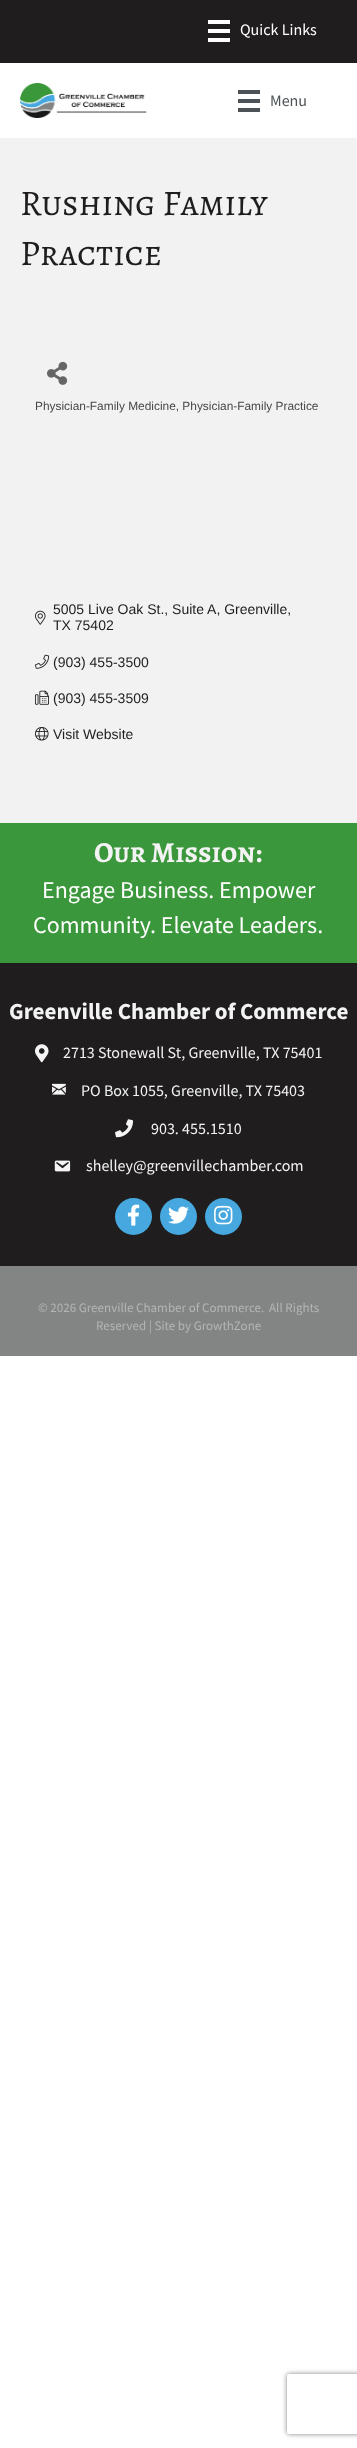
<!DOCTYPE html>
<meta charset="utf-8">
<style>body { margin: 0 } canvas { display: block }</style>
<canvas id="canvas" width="357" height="2448"></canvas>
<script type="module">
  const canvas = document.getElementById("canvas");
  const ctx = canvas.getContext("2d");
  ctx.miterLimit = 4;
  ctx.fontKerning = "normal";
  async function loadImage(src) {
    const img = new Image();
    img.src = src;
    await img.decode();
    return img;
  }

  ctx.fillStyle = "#ffffff";
  ctx.fillRect(0, 0, 357, 2448);
  ctx.fillStyle = "#1f1d1d";
  ctx.fillRect(0, 0, 357, 63);
  ctx.fillStyle = "#ffffff";
  ctx.fillRect(208, 20, 22, 4);
  ctx.fillRect(208, 29, 22, 4);
  ctx.fillRect(208, 38, 22, 4);
  ctx.font = "16px Source Sans Pro";
  ctx.fillText("Quick Links", 240, 35);
  ctx.drawImage(await loadImage("img1.png"), 20, 83, 127, 35);
  ctx.fillStyle = "#4c5256";
  ctx.fillRect(238, 90, 22, 4);
  ctx.fillRect(238, 99, 22, 4);
  ctx.fillRect(238, 108, 22, 4);
  ctx.fillText("Menu", 270, 106);
  ctx.fillStyle = "#f2f2f2";
  ctx.fillRect(0, 138, 357, 685);
  ctx.font = "36px Alegreya SC";
  ctx.fillStyle = "#1f1d1d";
  ctx.fillText("Rushing Family", 20, 215);
  ctx.fillText("Practice", 20, 265);
  ctx.drawImage(await loadImage("img2.png"), 47, 361, 21, 24);
  ctx.font = "11.9px Liberation Sans";
  ctx.fillStyle = "#494848";
  ctx.fillText("Physician-Family Medicine, Physician-Family Practice", 35, 410);
  ctx.drawImage(await loadImage("img3.png"), 35, 610, 11, 15);
  ctx.font = "14px Liberation Sans";
  ctx.fillStyle = "#1f1d1d";
  ctx.fillText("5005 Live Oak St., Suite A, Greenville,", 53, 614);
  ctx.fillText("TX 75402", 53, 630);
  ctx.drawImage(await loadImage("img4.png"), 35, 654, 14, 15);
  ctx.fillText("(903) 455-3500", 53, 667);
  ctx.drawImage(await loadImage("img5.png"), 35, 690, 14, 15);
  ctx.fillText("(903) 455-3509", 53, 703);
  ctx.drawImage(await loadImage("img6.png"), 35, 727, 14, 14);
  ctx.fillText("Visit Website", 53, 739);
  ctx.fillStyle = "#3b973b";
  ctx.fillRect(0, 823, 357, 140);
  ctx.font = "bold 29px Alegreya SC";
  ctx.fillStyle = "#f3f3f3";
  ctx.fillText("Our Mission:", 94, 862);
  ctx.font = "24px Source Sans Pro";
  ctx.fillStyle = "#ffffff";
  ctx.fillText("Engage Business. Empower", 42, 898);
  ctx.fillText("Community. Elevate Leaders.", 33, 933);
  ctx.fillStyle = "#1f1d1d";
  ctx.fillRect(0, 963, 357, 303);
  ctx.font = "bold 23px Source Sans Pro";
  ctx.fillStyle = "#f3f3f3";
  ctx.fillText("Greenville Chamber of Commerce", 9, 1019);
  ctx.drawImage(await loadImage("img7.png"), 35, 1044, 14, 19);
  ctx.font = "16px Source Sans Pro";
  ctx.fillText("2713 Stonewall St, Greenville, TX 75401", 63, 1058);
  ctx.drawImage(await loadImage("img8.png"), 52, 1083, 14, 12);
  ctx.fillText("PO Box 1055, Greenville, TX 75403", 81, 1096);
  ctx.drawImage(await loadImage("img9.png"), 115, 1119, 18, 19);
  ctx.fillText("903. 455.1510", 151, 1134);
  ctx.drawImage(await loadImage("img10.png"), 54, 1160, 17, 12);
  ctx.fillText("shelley@greenvillechamber.com", 86, 1171);
  ctx.fillStyle = "#46a8df";
  ctx.beginPath();
  ctx.arc(133.5, 1216.5, 18.5, 0, Math.PI * 2);
  ctx.fill();
  ctx.drawImage(await loadImage("img11.png"), 127, 1204, 13, 22);
  ctx.beginPath();
  ctx.arc(178.5, 1216.5, 18.5, 0, Math.PI * 2);
  ctx.fill();
  ctx.drawImage(await loadImage("img12.png"), 168, 1206, 21, 18);
  ctx.beginPath();
  ctx.arc(223.5, 1216.5, 18.5, 0, Math.PI * 2);
  ctx.fill();
  ctx.drawImage(await loadImage("img13.png"), 214, 1205, 19, 20);
  ctx.fillStyle = "#838484";
  ctx.fillRect(0, 1266, 357, 90);
  ctx.font = "13px Source Sans Pro";
  ctx.fillStyle = "#b5b5b5";
  ctx.fillText("© 2026 Greenville Chamber of Commerce.", 38, 1312);
  ctx.fillText("All Rights", 269, 1312);
  ctx.fillText("Reserved | Site by GrowthZone", 96, 1330);
  ctx.save();
  ctx.beginPath();
  ctx.moveTo(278, 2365);
  ctx.lineTo(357, 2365);
  ctx.lineTo(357, 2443);
  ctx.lineTo(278, 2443);
  ctx.closePath();
  ctx.moveTo(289, 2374);
  ctx.lineTo(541, 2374);
  ctx.bezierCurveTo(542, 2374, 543, 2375, 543, 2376);
  ctx.lineTo(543, 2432);
  ctx.bezierCurveTo(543, 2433, 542, 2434, 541, 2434);
  ctx.lineTo(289, 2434);
  ctx.bezierCurveTo(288, 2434, 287, 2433, 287, 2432);
  ctx.lineTo(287, 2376);
  ctx.bezierCurveTo(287, 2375, 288, 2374, 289, 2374);
  ctx.closePath();
  ctx.clip("evenodd");
  ctx.fillStyle = "#808080";
  ctx.filter = "blur(2.5px)";
  ctx.beginPath();
  ctx.roundRect(287, 2374, 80, 60, 2);
  ctx.fill();
  ctx.filter = "none";
  ctx.restore();
</script>
